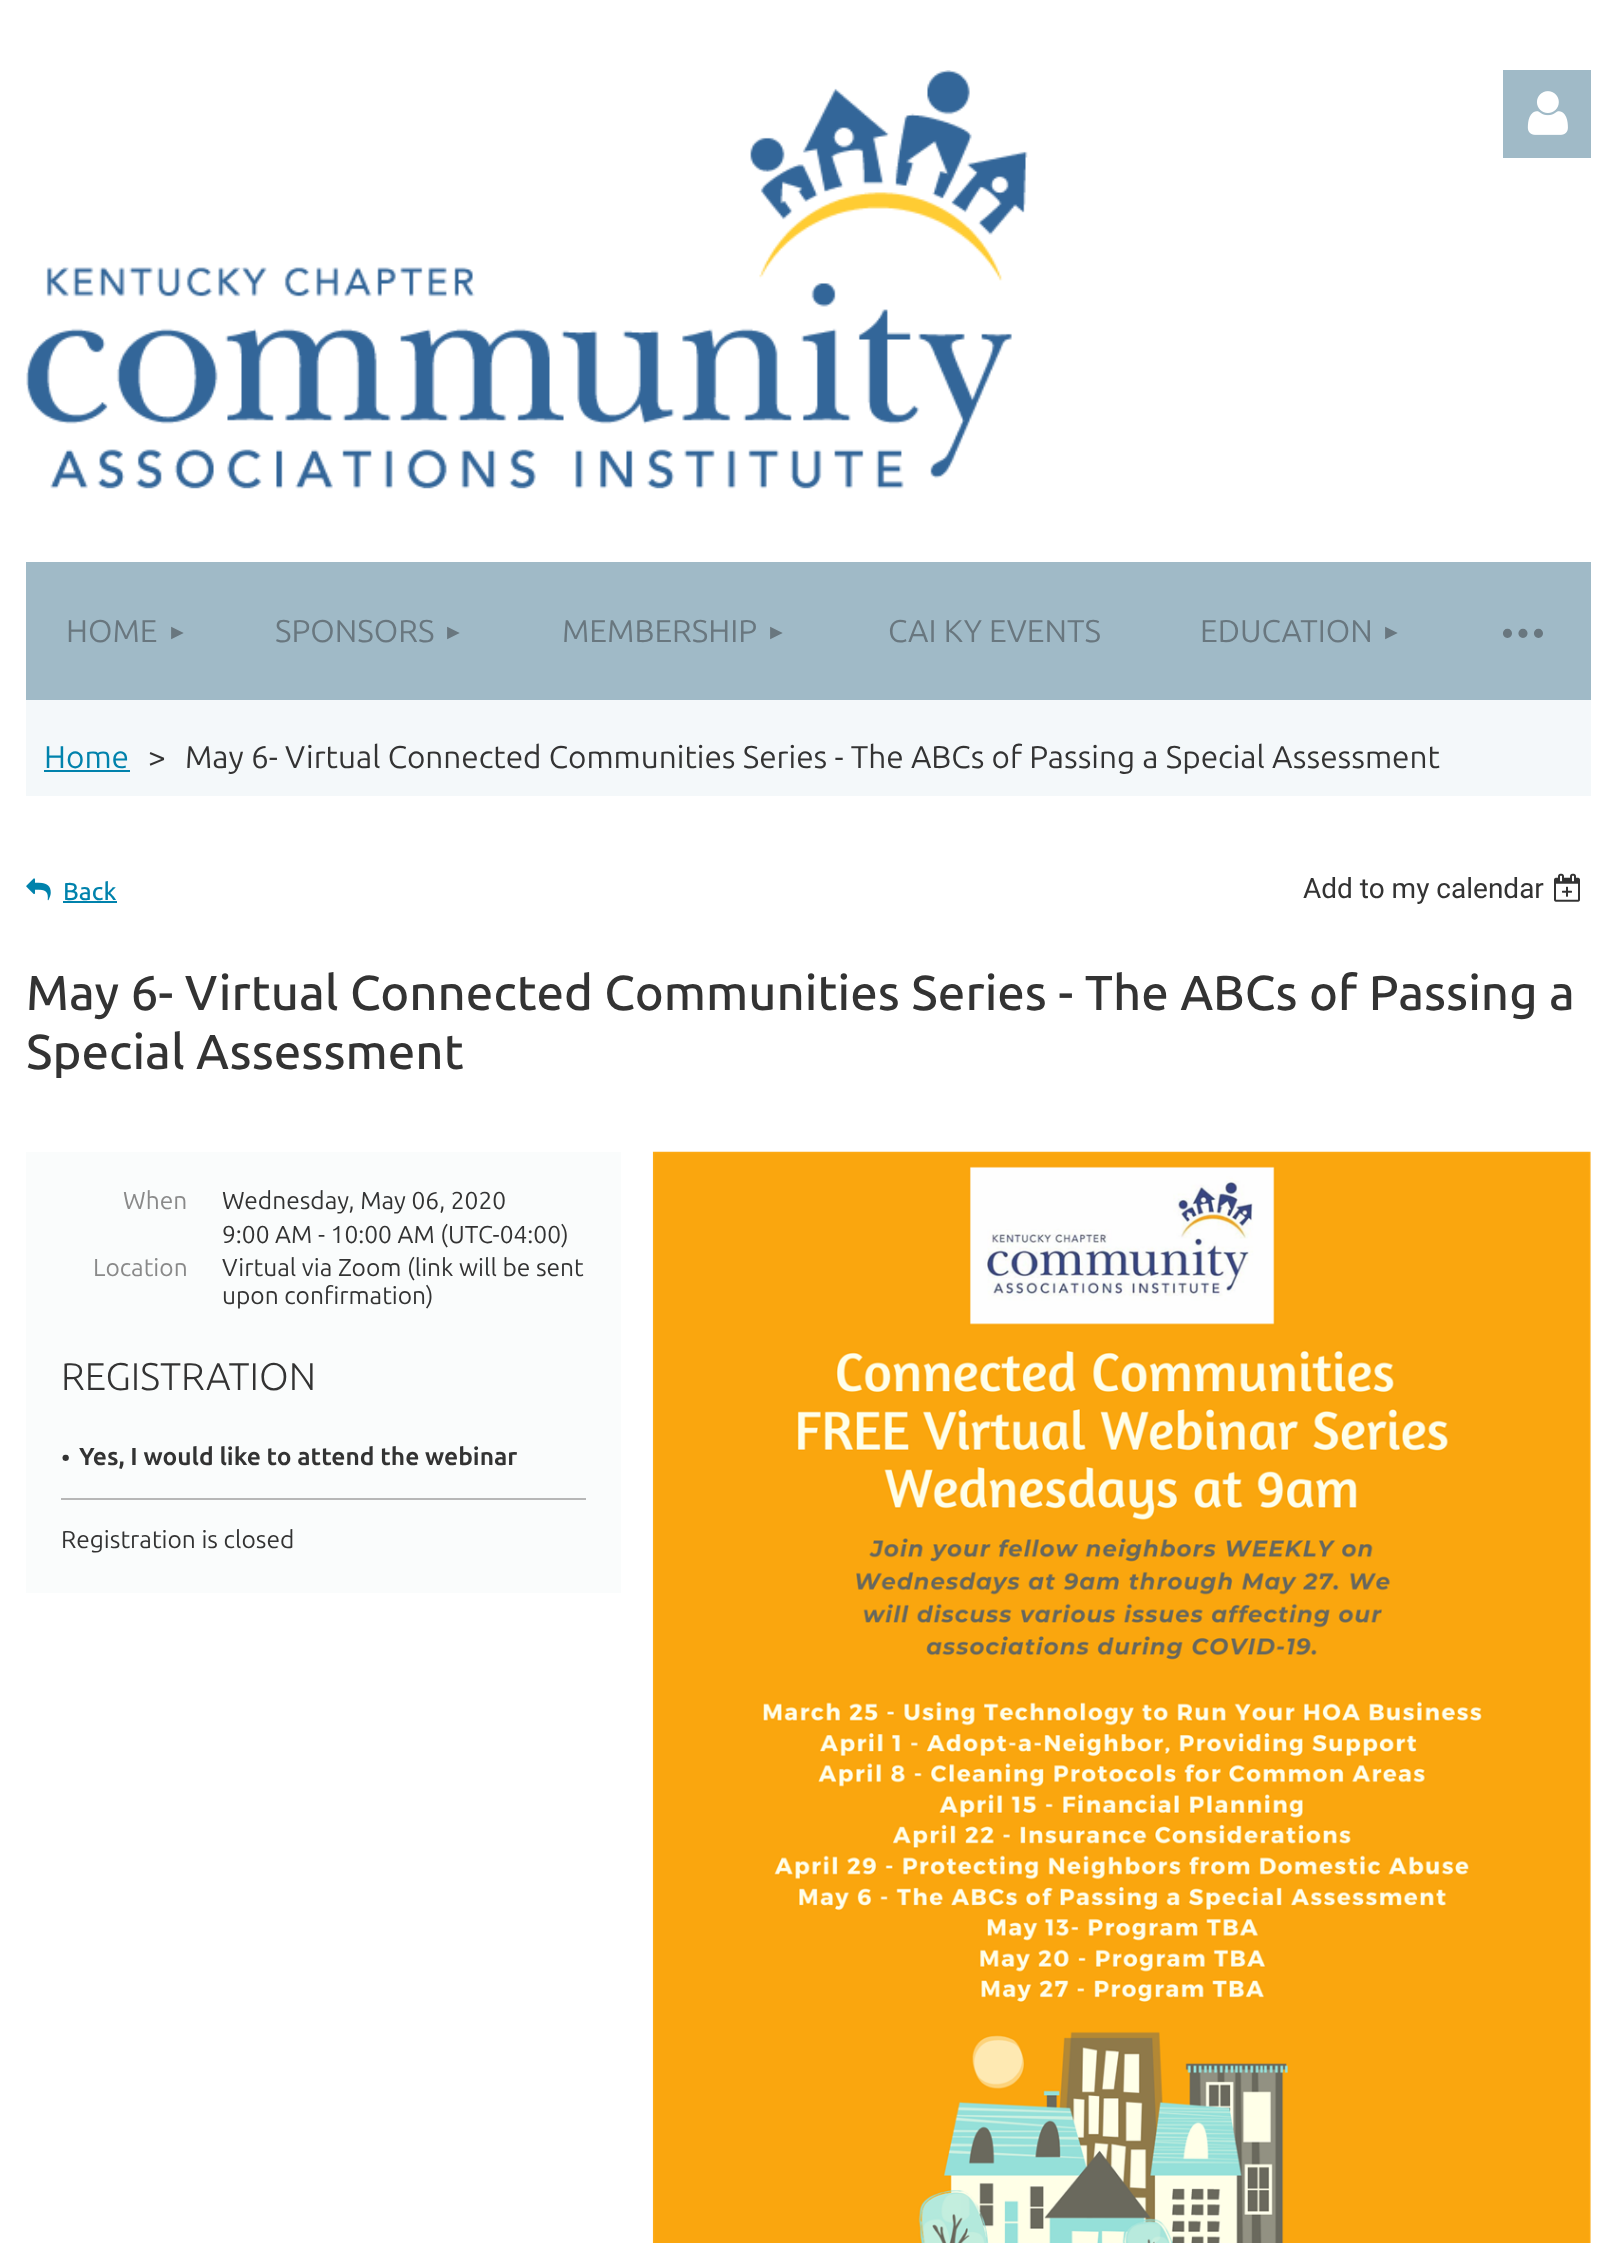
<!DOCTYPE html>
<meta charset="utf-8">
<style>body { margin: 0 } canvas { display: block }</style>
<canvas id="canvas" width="1617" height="2243"></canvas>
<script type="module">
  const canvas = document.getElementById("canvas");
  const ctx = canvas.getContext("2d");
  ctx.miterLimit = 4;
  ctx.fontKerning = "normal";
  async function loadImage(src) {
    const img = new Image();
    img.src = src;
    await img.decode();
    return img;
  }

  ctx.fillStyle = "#ffffff";
  ctx.fillRect(0, 0, 1617, 2243);
  ctx.drawImage(await loadImage("img1.png"), 26, 70, 1002, 419);
  ctx.fillStyle = "#a0bac7";
  ctx.fillRect(1503, 70, 88, 88);
  ctx.drawImage(await loadImage("img2.png"), 1527, 91, 41, 44);
  ctx.fillStyle = "#f4f8fa";
  ctx.fillRect(26, 700, 1565, 96);
  ctx.fillStyle = "#a0bac7";
  ctx.fillRect(26, 562, 1565, 138);
  ctx.font = "31.5px Ubuntu";
  ctx.fillStyle = "#69777f";
  ctx.fillText("HOME", 66, 642);
  ctx.font = "21px Liberation Sans";
  ctx.fillText("►", 167, 639);
  ctx.font = "31.5px Ubuntu";
  ctx.fillText("SPONSORS", 275, 642);
  ctx.font = "21px Liberation Sans";
  ctx.fillText("►", 443, 639);
  ctx.font = "31.5px Ubuntu";
  ctx.fillText("MEMBERSHIP", 562, 642);
  ctx.font = "21px Liberation Sans";
  ctx.fillText("►", 766, 639);
  ctx.font = "31.5px Ubuntu";
  ctx.fillText("CAI KY EVENTS", 888, 642);
  ctx.fillText("EDUCATION", 1200, 642);
  ctx.font = "21px Liberation Sans";
  ctx.fillText("►", 1381, 639);
  ctx.letterSpacing = "-3.5px";
  ctx.font = "77px Ubuntu";
  ctx.fillText("···", 1498, 656);
  ctx.letterSpacing = "0px";
  ctx.font = "31.5px Ubuntu";
  ctx.fillStyle = "#0082ac";
  ctx.fillText("Home", 44, 768);
  ctx.fillRect(44, 770, 86, 2);
  ctx.fillStyle = "#333333";
  ctx.fillText(">", 148, 768);
  ctx.fillText("May 6- Virtual Connected Communities Series - The ABCs of Passing a Special Assessment", 185, 768);
  ctx.drawImage(await loadImage("img3.png"), 26, 878, 25, 23);
  ctx.font = "500 24.5px Ubuntu";
  ctx.fillStyle = "#0082ac";
  ctx.fillText("Back", 63, 900);
  ctx.fillRect(63, 901, 54, 2);
  ctx.font = "28px Roboto";
  ctx.fillStyle = "#333333";
  ctx.fillText("Add to my calendar", 1303, 898);
  ctx.drawImage(await loadImage("img4.png"), 1554, 873, 26, 29);
  ctx.font = "500 49px Ubuntu";
  ctx.fillText("May 6- Virtual Connected Communities Series - The ABCs of Passing a", 26, 1010);
  ctx.fillText("Special Assessment", 26, 1069);
  ctx.fillStyle = "#fafcfc";
  ctx.fillRect(26, 1152, 595, 441);
  ctx.font = "24.5px Ubuntu";
  ctx.fillStyle = "#898989";
  ctx.fillText("When", 123, 1209);
  ctx.fillStyle = "#333333";
  ctx.fillText("Wednesday, May 06, 2020", 222, 1209);
  ctx.fillText("9:00 AM - 10:00 AM (UTC-04:00)", 222, 1243);
  ctx.fillStyle = "#898989";
  ctx.fillText("Location", 93, 1276);
  ctx.fillStyle = "#333333";
  ctx.fillText("Virtual via Zoom (link will be sent", 222, 1276);
  ctx.fillText("upon confirmation)", 222, 1304);
  ctx.font = "300 38.5px Ubuntu";
  ctx.fillText("REGISTRATION", 61, 1390);
  ctx.font = "26px Ubuntu";
  ctx.fillText("•", 61, 1467);
  ctx.font = "bold 24.5px Ubuntu";
  ctx.fillText("Yes, I would like to attend the webinar", 79, 1465);
  ctx.fillStyle = "#b7b7b7";
  ctx.fillRect(61, 1498, 525, 2);
  ctx.font = "24.5px Ubuntu";
  ctx.fillStyle = "#333333";
  ctx.fillText("Registration is closed", 61, 1548);
  ctx.drawImage(await loadImage("img5.png"), 652, 1151, 939, 1092);
</script>
